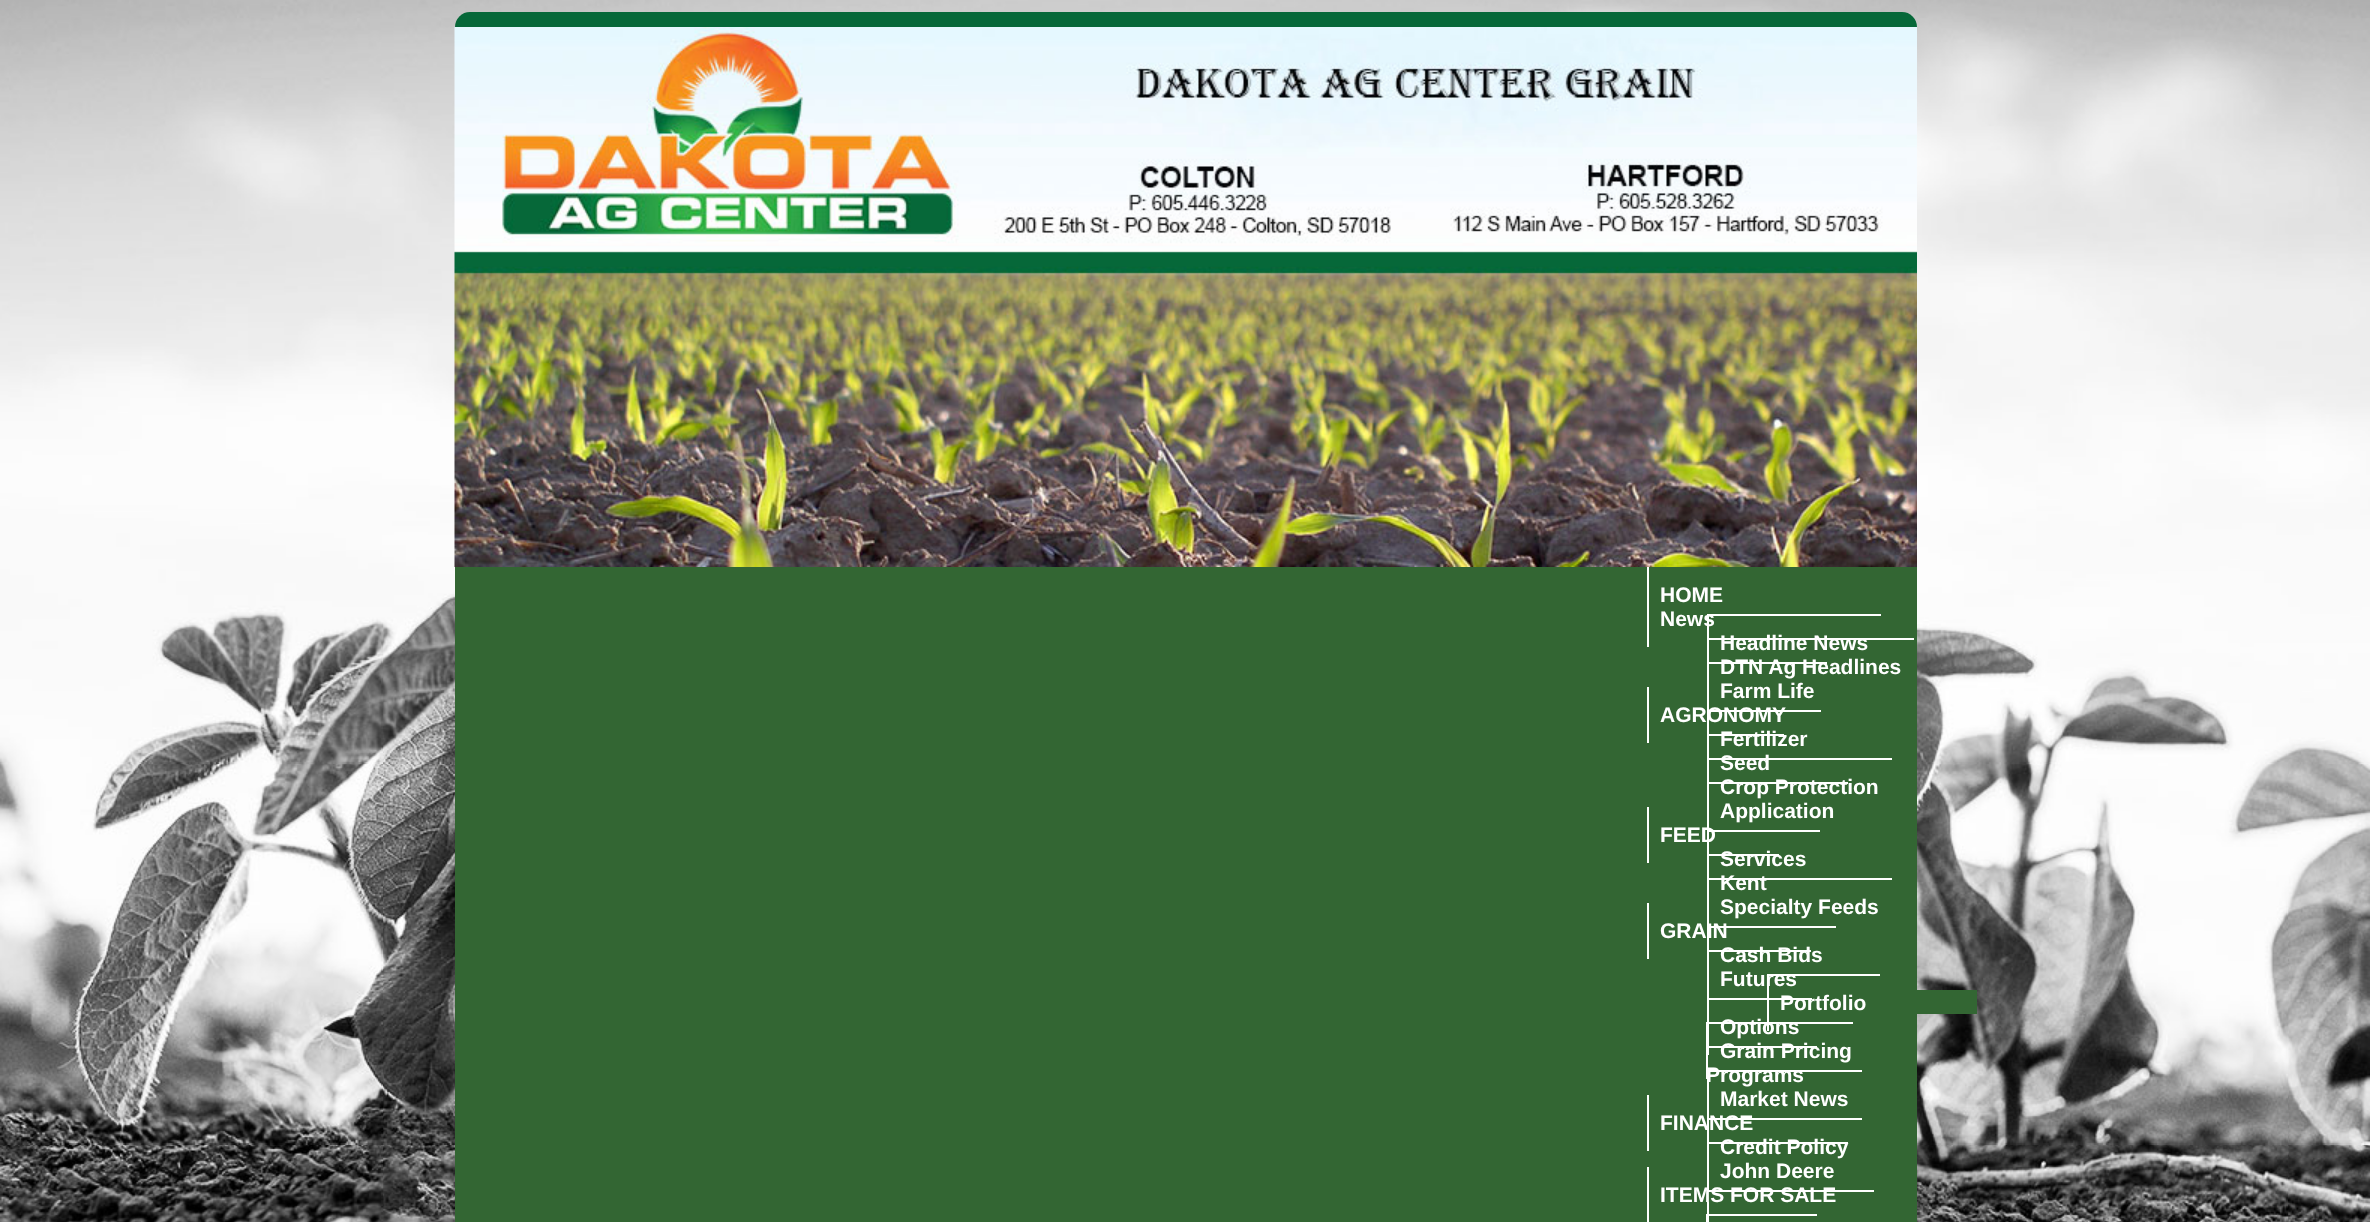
<!DOCTYPE html>
<meta charset="utf-8">
<style>body { margin: 0 } canvas { display: block }</style>
<canvas id="canvas" width="2370" height="1222"></canvas>
<script type="module">
  const canvas = document.getElementById("canvas");
  const ctx = canvas.getContext("2d");
  ctx.miterLimit = 4;
  ctx.fontKerning = "normal";
  async function loadImage(src) {
    const img = new Image();
    img.src = src;
    await img.decode();
    return img;
  }

  ctx.fillStyle = "#ffffff";
  ctx.fillRect(0, 0, 2370, 1222);
  ctx.drawImage(await loadImage("img1.png"), 0, 0, 2370, 1222);
  ctx.fillStyle = "#066839";
  ctx.beginPath();
  ctx.roundRect(455, 12, 1462, 15, [15, 15, 0, 0]);
  ctx.fill();
  ctx.drawImage(await loadImage("img2.png"), 454, 27, 1463, 540);
  ctx.fillStyle = "#336633";
  ctx.fillRect(455, 567, 1462, 655);
  ctx.font = "bold 21px Liberation Sans";
  ctx.fillStyle = "#ffffff";
  ctx.fillText("HOME", 1660, 602);
  ctx.fillRect(1647, 567, 2, 80);
  ctx.fillText("News", 1660, 626);
  ctx.fillText("Headline News", 1720, 650);
  ctx.fillRect(1707, 614, 174, 2);
  ctx.fillRect(1707, 614, 2, 24);
  ctx.fillText("DTN Ag Headlines", 1720, 674);
  ctx.fillRect(1707, 638, 207, 2);
  ctx.fillRect(1707, 638, 2, 24);
  ctx.fillText("Farm Life", 1720, 698);
  ctx.fillRect(1707, 662, 120, 2);
  ctx.fillRect(1707, 662, 2, 48);
  ctx.fillText("AGRONOMY", 1660, 722);
  ctx.fillRect(1647, 687, 2, 56);
  ctx.fillText("Fertilizer", 1720, 746);
  ctx.fillRect(1707, 710, 114, 2);
  ctx.fillRect(1707, 710, 2, 24);
  ctx.fillText("Seed", 1720, 770);
  ctx.fillRect(1707, 734, 77, 2);
  ctx.fillRect(1707, 734, 2, 24);
  ctx.fillText("Crop Protection", 1720, 794);
  ctx.fillRect(1707, 758, 185, 2);
  ctx.fillRect(1707, 758, 2, 24);
  ctx.fillText("Application", 1720, 818);
  ctx.fillRect(1707, 782, 141, 2);
  ctx.fillRect(1707, 782, 2, 48);
  ctx.fillText("FEED", 1660, 842);
  ctx.fillRect(1647, 807, 2, 56);
  ctx.fillText("Services", 1720, 866);
  ctx.fillRect(1707, 830, 113, 2);
  ctx.fillRect(1707, 830, 2, 24);
  ctx.fillText("Kent", 1720, 890);
  ctx.fillRect(1707, 854, 72, 2);
  ctx.fillRect(1707, 854, 2, 24);
  ctx.fillText("Specialty Feeds", 1720, 914);
  ctx.fillRect(1707, 878, 185, 2);
  ctx.fillRect(1707, 878, 2, 48);
  ctx.fillText("GRAIN", 1660, 938);
  ctx.fillRect(1647, 903, 2, 56);
  ctx.fillText("Cash Bids", 1720, 962);
  ctx.fillRect(1707, 926, 129, 2);
  ctx.fillRect(1707, 926, 2, 24);
  ctx.fillText("Futures", 1720, 986);
  ctx.fillRect(1707, 950, 104, 2);
  ctx.fillRect(1707, 950, 2, 48);
  ctx.fillStyle = "#336633";
  ctx.fillRect(1917, 990, 60, 24);
  ctx.fillStyle = "#ffffff";
  ctx.fillText("Portfolio", 1780, 1010);
  ctx.fillRect(1767, 974, 113, 2);
  ctx.fillRect(1767, 974, 2, 57);
  ctx.fillText("Options", 1720, 1034);
  ctx.fillRect(1707, 998, 105, 2);
  ctx.fillRect(1707, 998, 2, 57);
  ctx.fillRect(1706, 1022, 147, 2);
  ctx.fillRect(1706, 1022, 2, 57);
  ctx.fillRect(1707, 1046, 110, 2);
  ctx.fillText("Grain Pricing", 1720, 1058);
  ctx.fillText("Programs", 1706, 1082);
  ctx.fillText("Market News", 1720, 1106);
  ctx.fillRect(1707, 1070, 155, 2);
  ctx.fillRect(1707, 1079, 2, 39);
  ctx.fillText("FINANCE", 1660, 1130);
  ctx.fillRect(1647, 1095, 2, 56);
  ctx.fillText("Credit Policy", 1720, 1154);
  ctx.fillRect(1707, 1118, 155, 2);
  ctx.fillRect(1707, 1118, 2, 24);
  ctx.fillText("John Deere", 1720, 1178);
  ctx.fillRect(1707, 1142, 141, 2);
  ctx.fillRect(1707, 1142, 2, 48);
  ctx.fillText("ITEMS FOR SALE", 1660, 1202);
  ctx.fillRect(1647, 1167, 2, 55);
  ctx.fillRect(1707, 1190, 167, 2);
  ctx.fillRect(1707, 1202, 2, 20);
  ctx.fillRect(1706, 1214, 111, 2);
  ctx.fillRect(1706, 1214, 1, 8);
</script>
